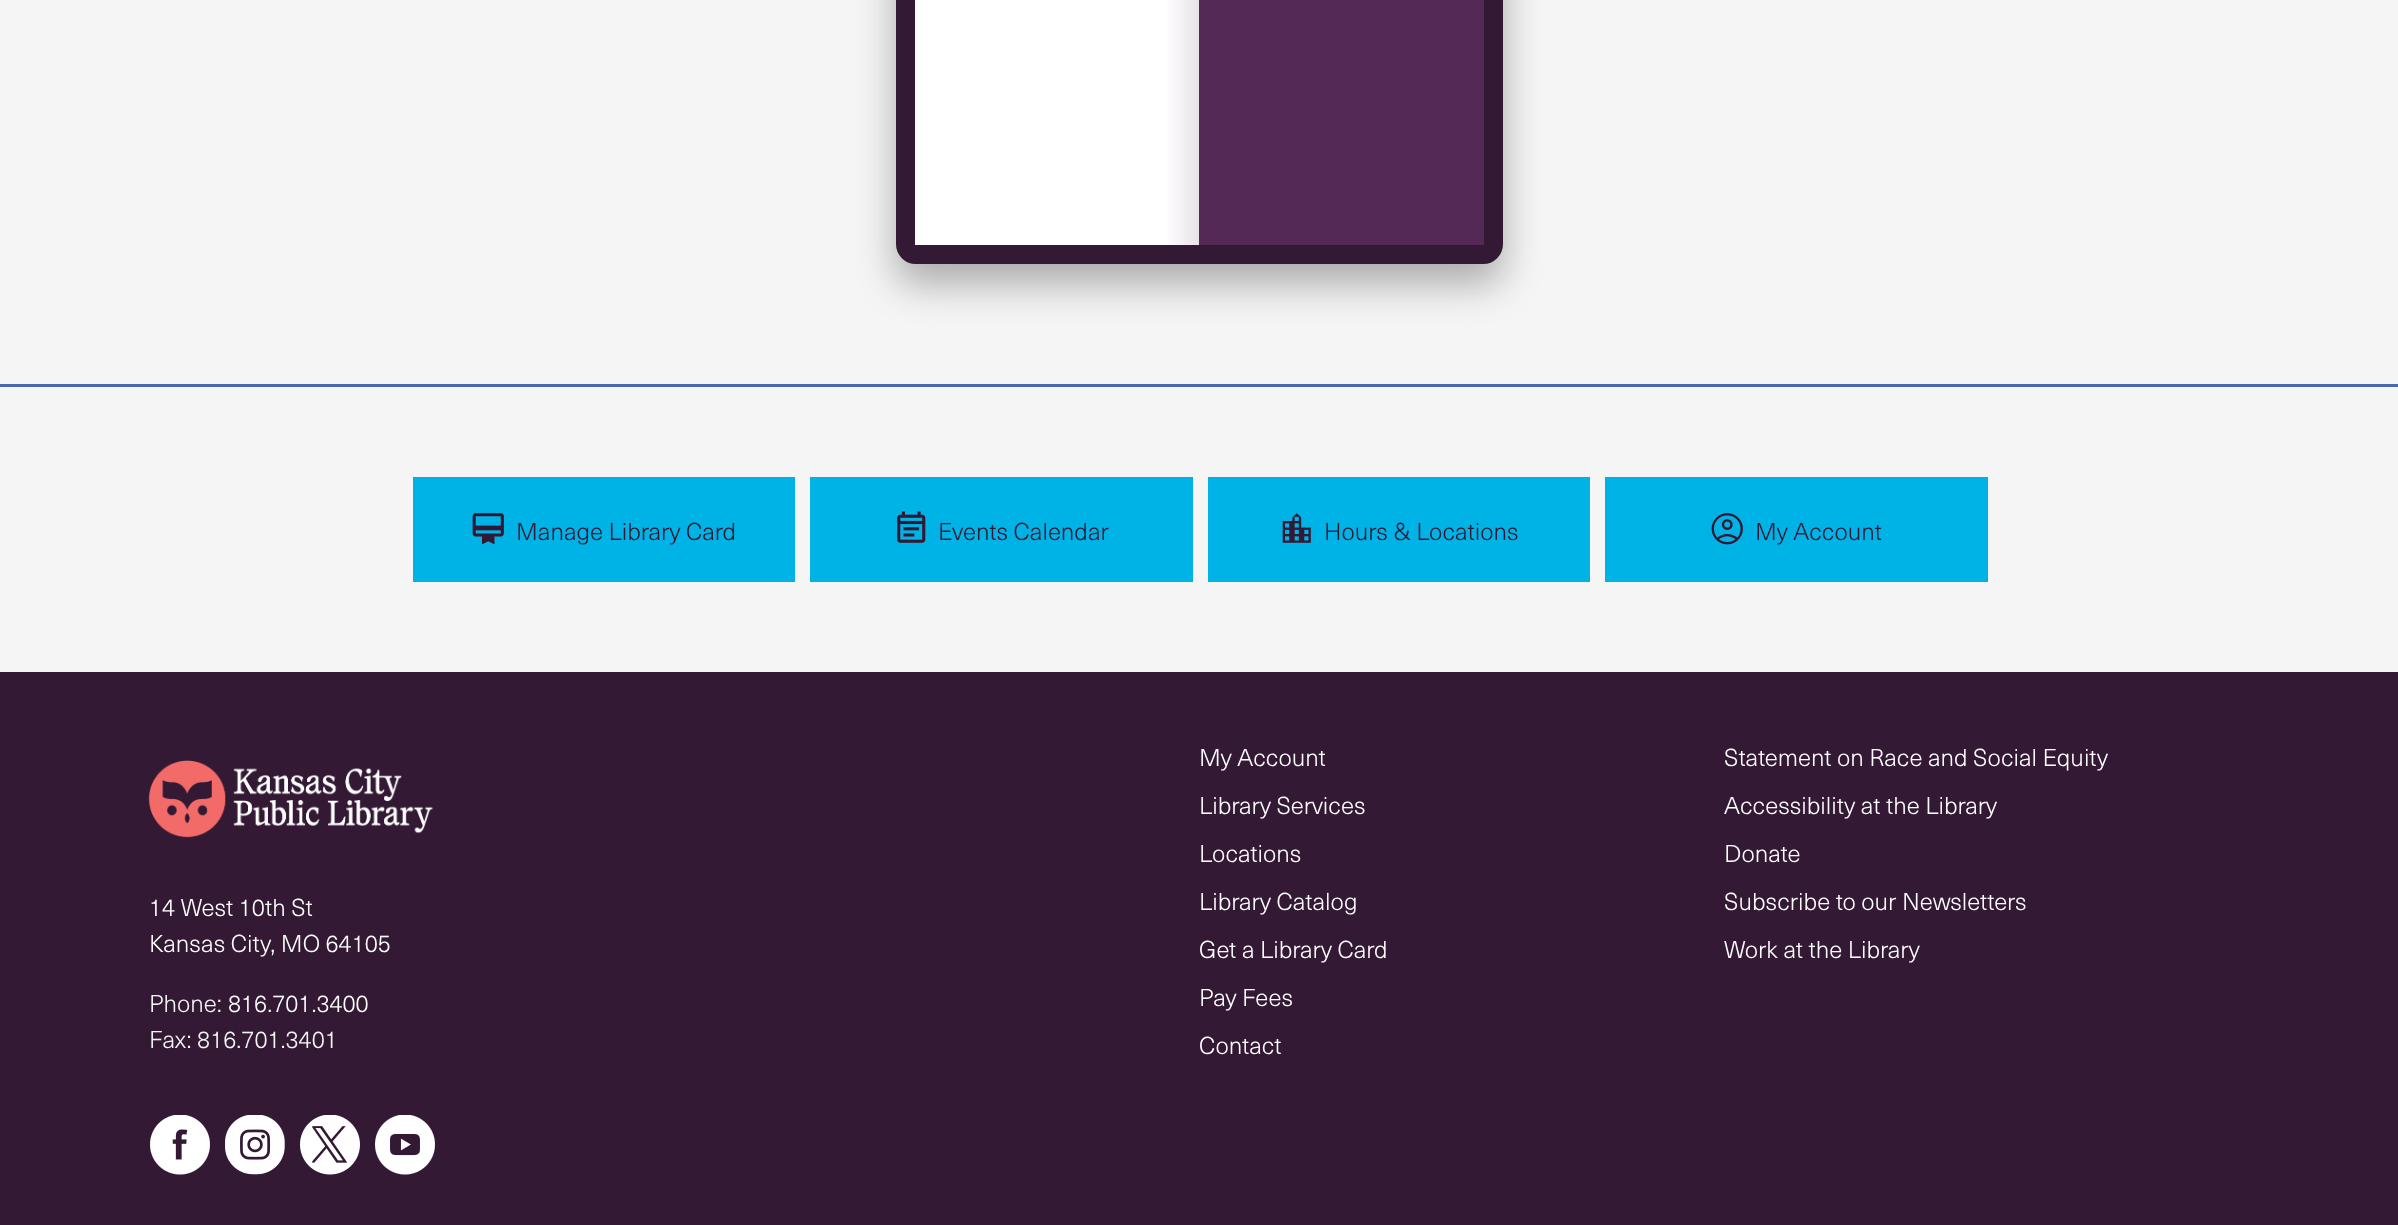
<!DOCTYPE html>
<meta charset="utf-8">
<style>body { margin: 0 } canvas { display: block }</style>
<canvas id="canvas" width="2398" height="1225"></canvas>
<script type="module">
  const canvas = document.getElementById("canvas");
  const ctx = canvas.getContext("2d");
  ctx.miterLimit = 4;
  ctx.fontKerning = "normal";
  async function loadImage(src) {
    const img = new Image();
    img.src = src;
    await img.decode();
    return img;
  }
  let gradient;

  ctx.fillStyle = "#f5f5f5";
  ctx.fillRect(0, 0, 2398, 1225);
  ctx.fillStyle = "rgba(0, 0, 0, 0.3)";
  ctx.filter = "blur(19px)";
  ctx.beginPath();
  ctx.roundRect(896, -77, 607, 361, 20);
  ctx.fill();
  ctx.filter = "none";
  ctx.fillStyle = "#552956";
  ctx.beginPath();
  ctx.roundRect(905.5, -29.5, 588, 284, 10.5);
  ctx.fill();
  ctx.strokeStyle = "#331934";
  ctx.lineWidth = 19;
  ctx.stroke();
  gradient = ctx.createLinearGradient(915, 36, 1199, 36);
  gradient.addColorStop(0.88, "#ffffff");
  gradient.addColorStop(1, "#e8e3e8");
  ctx.fillStyle = gradient;
  ctx.fillRect(915, 0, 284, 245);
  ctx.fillStyle = "#4a68b1";
  ctx.fillRect(0, 384, 2398, 3);
  ctx.fillStyle = "#00b3e6";
  ctx.fillRect(413, 477, 382, 105);
  ctx.drawImage(await loadImage("img1.png"), 472, 513, 32, 32);
  ctx.font = "300 24px 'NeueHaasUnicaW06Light'";
  ctx.fillStyle = "#331934";
  ctx.fillText("Manage Library Card", 516, 540);
  ctx.fillStyle = "#00b3e6";
  ctx.fillRect(810, 477, 383, 105);
  ctx.drawImage(await loadImage("img2.png"), 897, 511, 29, 32);
  ctx.fillStyle = "#331934";
  ctx.fillText("Events Calendar", 938, 540);
  ctx.fillStyle = "#00b3e6";
  ctx.fillRect(1208, 477, 382, 105);
  ctx.drawImage(await loadImage("img3.png"), 1282, 513, 29, 30);
  ctx.fillStyle = "#331934";
  ctx.fillText("Hours & Locations", 1324, 540);
  ctx.fillStyle = "#00b3e6";
  ctx.fillRect(1605, 477, 383, 105);
  ctx.drawImage(await loadImage("img4.png"), 1711, 513, 32, 32);
  ctx.fillStyle = "#331934";
  ctx.fillText("My Account", 1755, 540);
  ctx.fillRect(0, 672, 2398, 553);
  ctx.drawImage(await loadImage("img5.png"), 148, 760, 285, 78);
  ctx.fillStyle = "#ffffff";
  ctx.fillText("14 West 10th St", 149, 916);
  ctx.fillText("Kansas City, MO 64105", 149, 952);
  ctx.fillStyle = "#f5f5f5";
  ctx.fillText("Phone:", 149, 1012);
  ctx.fillStyle = "#ffffff";
  ctx.fillText("816.701.3400", 228, 1012);
  ctx.fillStyle = "#f5f5f5";
  ctx.fillText("Fax: 816.701.3401", 149, 1048);
  ctx.drawImage(await loadImage("img6.png"), 150, 1115, 60, 60);
  ctx.drawImage(await loadImage("img7.png"), 225, 1115, 60, 60);
  ctx.drawImage(await loadImage("img8.png"), 300, 1115, 60, 60);
  ctx.drawImage(await loadImage("img9.png"), 375, 1115, 60, 60);
  ctx.fillStyle = "#ffffff";
  ctx.fillText("My Account", 1199, 766);
  ctx.fillText("Library Services", 1199, 814);
  ctx.fillText("Locations", 1199, 862);
  ctx.fillText("Library Catalog", 1199, 910);
  ctx.fillText("Get a Library Card", 1199, 958);
  ctx.fillText("Pay Fees", 1199, 1006);
  ctx.fillText("Contact", 1199, 1054);
  ctx.fillText("Statement on Race and Social Equity", 1724, 766);
  ctx.fillText("Accessibility at the Library", 1724, 814);
  ctx.fillText("Donate", 1724, 862);
  ctx.fillText("Subscribe to our Newsletters", 1724, 910);
  ctx.fillText("Work at the Library", 1724, 958);
</script>
